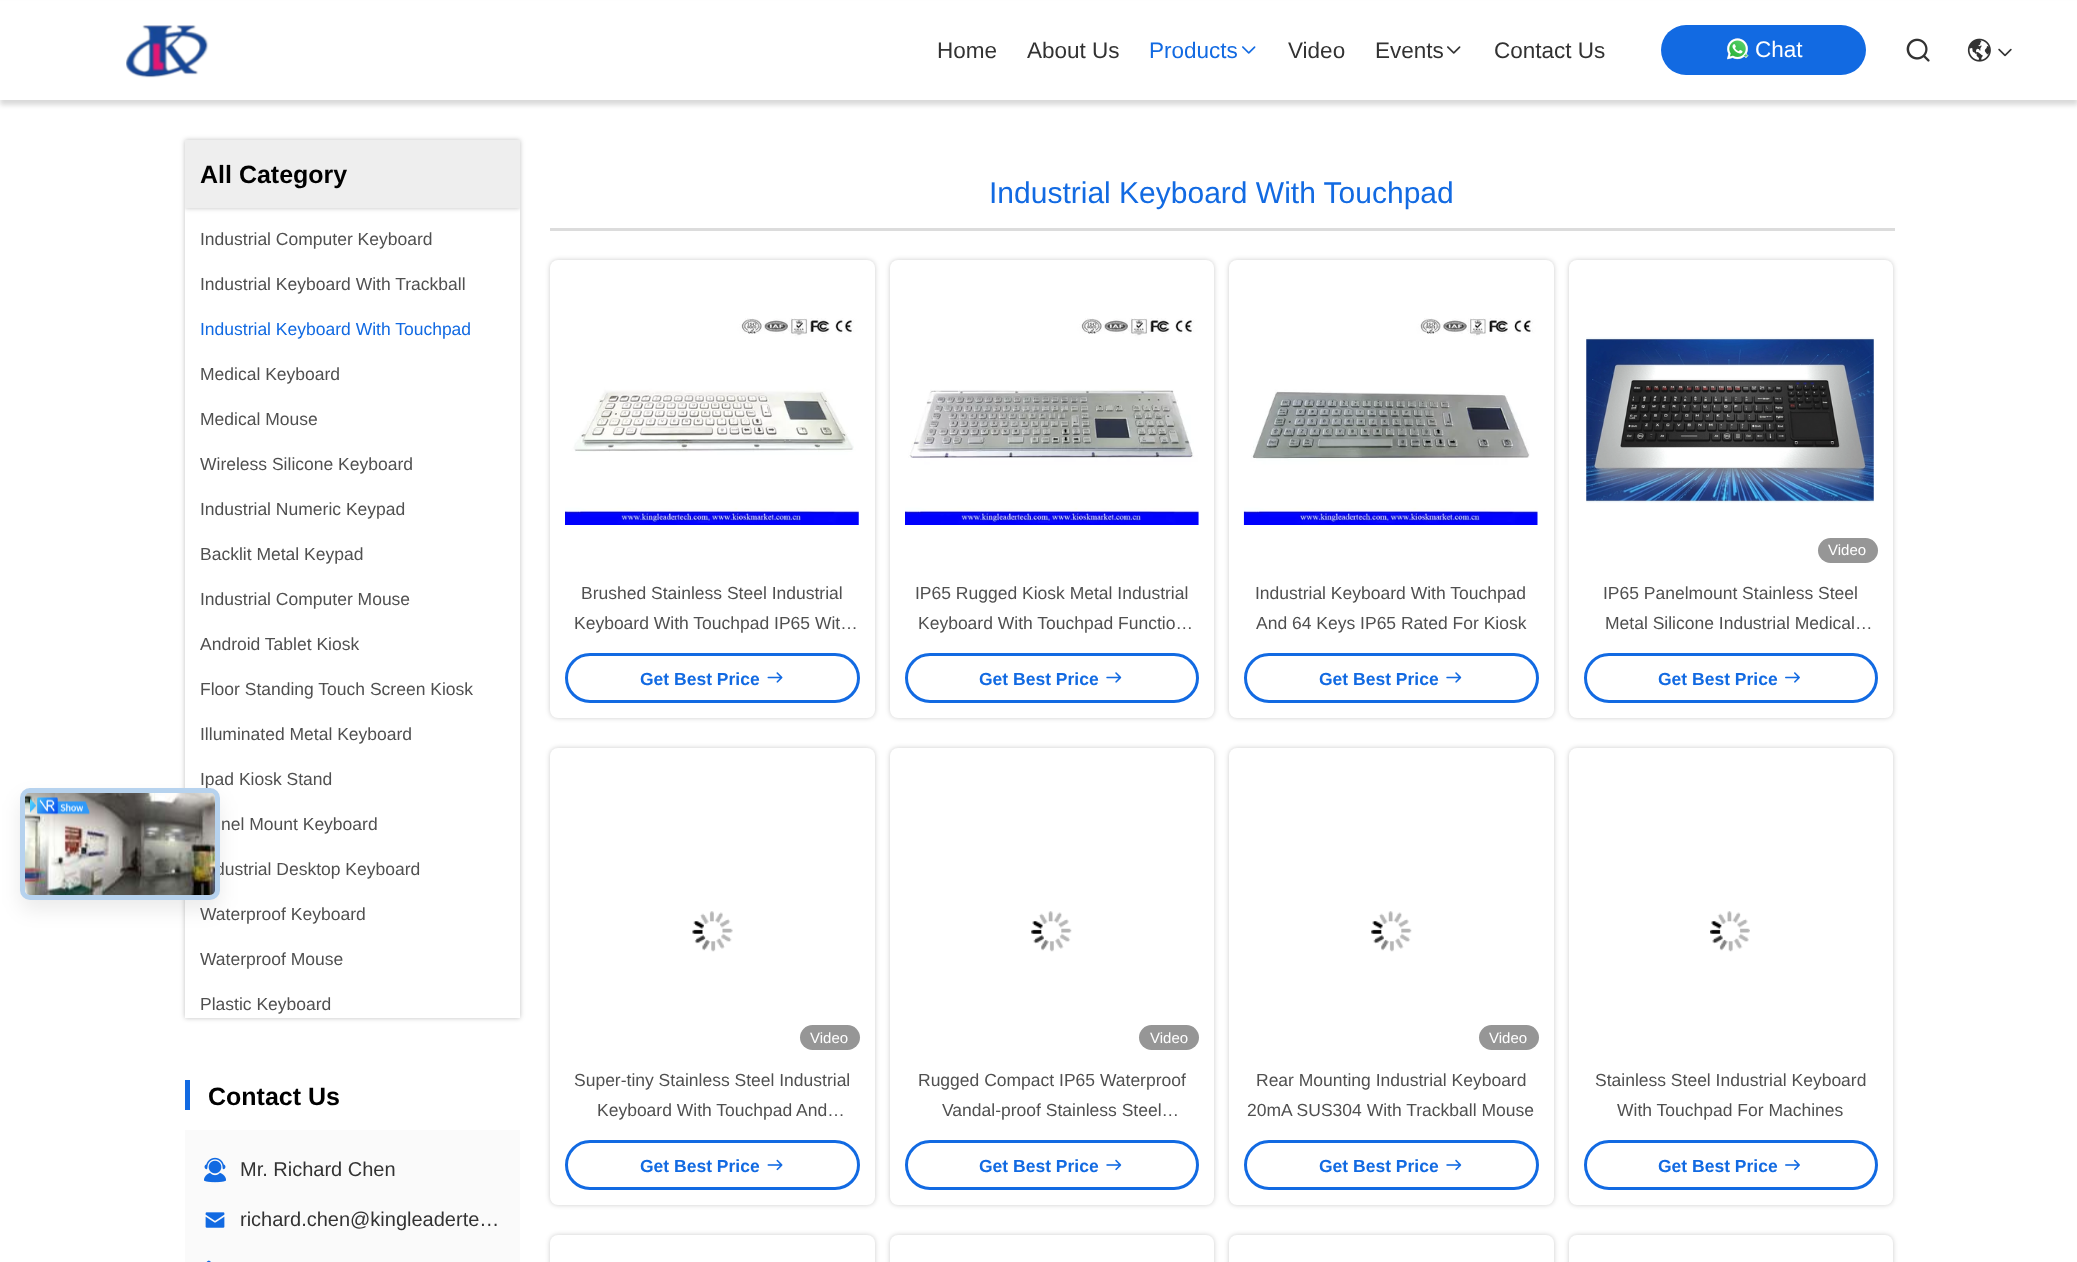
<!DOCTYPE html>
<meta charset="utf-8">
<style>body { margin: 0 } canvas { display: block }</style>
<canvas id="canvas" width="2077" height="1262"></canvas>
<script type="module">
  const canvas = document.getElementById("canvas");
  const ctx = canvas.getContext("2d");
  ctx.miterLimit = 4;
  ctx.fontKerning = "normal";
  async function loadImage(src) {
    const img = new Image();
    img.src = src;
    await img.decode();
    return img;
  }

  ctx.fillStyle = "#ffffff";
  ctx.fillRect(0, 0, 2077, 1262);
  ctx.fillStyle = "rgba(0, 0, 0, 0.15)";
  ctx.filter = "blur(2.5px)";
  ctx.beginPath();
  ctx.rect(0, 5, 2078, 100);
  ctx.fill();
  ctx.filter = "none";
  ctx.fillStyle = "#ffffff";
  ctx.fillRect(0, 1, 2077, 99);
  ctx.drawImage(await loadImage("img1.png"), 126, 25, 83, 53);
  ctx.font = "22.5px Liberation Sans";
  ctx.fillStyle = "#323232";
  ctx.fillText("Home", 937, 58);
  ctx.fillText("About Us", 1027, 58);
  ctx.fillStyle = "#126ae2";
  ctx.fillText("Products", 1149, 58);
  ctx.drawImage(await loadImage("img2.png"), 1242, 46, 14, 8);
  ctx.fillStyle = "#323232";
  ctx.fillText("Video", 1288, 58);
  ctx.fillText("Events", 1375, 58);
  ctx.drawImage(await loadImage("img3.png"), 1447, 46, 14, 8);
  ctx.fillText("Contact Us", 1494, 58);
  ctx.fillStyle = "#126ae2";
  ctx.beginPath();
  ctx.roundRect(1661, 25, 205, 50, 25);
  ctx.fill();
  ctx.drawImage(await loadImage("img4.png"), 1727, 38, 22, 22);
  ctx.fillStyle = "#ffffff";
  ctx.fillText("Chat", 1755, 57);
  ctx.drawImage(await loadImage("img5.png"), 1906, 38, 24, 24);
  ctx.drawImage(await loadImage("img6.png"), 1967, 38, 24, 24);
  ctx.drawImage(await loadImage("img7.png"), 1998, 48, 14, 9);
  ctx.fillStyle = "rgba(0, 0, 0, 0.25)";
  ctx.filter = "blur(2.5px)";
  ctx.beginPath();
  ctx.rect(185, 208, 335, 810);
  ctx.fill();
  ctx.filter = "none";
  ctx.fillStyle = "#ffffff";
  ctx.fillRect(185, 208, 335, 810);
  ctx.fillStyle = "rgba(0, 0, 0, 0.08)";
  ctx.filter = "blur(10px)";
  ctx.beginPath();
  ctx.roundRect(20, 798, 200, 112, 10);
  ctx.fill();
  ctx.filter = "none";
  ctx.font = "17.5px Liberation Sans";
  ctx.fillStyle = "#505050";
  ctx.fillText("Ipad Kiosk Stand", 200, 785);
  ctx.fillText("dustrial Desktop Keyboard", 215, 875);
  ctx.fillStyle = "#eeeeee";
  ctx.beginPath();
  ctx.roundRect(20, 788, 200, 112, 10);
  ctx.fill();
  ctx.beginPath();
  ctx.roundRect(22.5, 790.5, 195, 107, 7.5);
  ctx.strokeStyle = "rgba(4, 120, 237, 0.24)";
  ctx.lineWidth = 5;
  ctx.stroke();
  ctx.drawImage(await loadImage("img8.png"), 25, 793, 190, 102);
  ctx.drawImage(await loadImage("img9.png"), 30, 797, 60, 18);
  ctx.fillStyle = "rgba(0, 0, 0, 0.25)";
  ctx.filter = "blur(2.5px)";
  ctx.beginPath();
  ctx.rect(185, 140, 335, 68);
  ctx.fill();
  ctx.filter = "none";
  ctx.fillStyle = "#eeeeee";
  ctx.fillRect(185, 140, 335, 68);
  ctx.font = "bold 25px Liberation Sans";
  ctx.fillStyle = "#000000";
  ctx.fillText("All Category", 200, 183);
  ctx.font = "17.5px Liberation Sans";
  ctx.fillStyle = "#505050";
  ctx.fillText("Industrial Computer Keyboard", 200, 245);
  ctx.fillText("Industrial Keyboard With Trackball", 200, 290);
  ctx.fillStyle = "#126ae2";
  ctx.fillText("Industrial Keyboard With Touchpad", 200, 335);
  ctx.fillStyle = "#505050";
  ctx.fillText("Medical Keyboard", 200, 380);
  ctx.fillText("Medical Mouse", 200, 425);
  ctx.fillText("Wireless Silicone Keyboard", 200, 470);
  ctx.fillText("Industrial Numeric Keypad", 200, 515);
  ctx.fillText("Backlit Metal Keypad", 200, 560);
  ctx.fillText("Industrial Computer Mouse", 200, 605);
  ctx.fillText("Android Tablet Kiosk", 200, 650);
  ctx.fillText("Floor Standing Touch Screen Kiosk", 200, 695);
  ctx.fillText("Illuminated Metal Keyboard", 200, 740);
  ctx.fillText("nel Mount Keyboard", 221, 830);
  ctx.fillText("Waterproof Keyboard", 200, 920);
  ctx.fillText("Waterproof Mouse", 200, 965);
  ctx.fillText("Plastic Keyboard", 200, 1010);
  ctx.fillStyle = "#126ae2";
  ctx.fillRect(185, 1080, 5, 30);
  ctx.font = "bold 25px Liberation Sans";
  ctx.fillStyle = "#000000";
  ctx.fillText("Contact Us", 208, 1105);
  ctx.fillStyle = "#fafafa";
  ctx.fillRect(185, 1130, 335, 132);
  ctx.drawImage(await loadImage("img10.png"), 204, 1157, 22, 26);
  ctx.font = "20px Liberation Sans";
  ctx.fillStyle = "#323232";
  ctx.fillText("Mr. Richard Chen", 240, 1176);
  ctx.drawImage(await loadImage("img11.png"), 205, 1212, 20, 16);
  ctx.fillText("richard.chen@kingleaderte…", 240, 1226);
  ctx.drawImage(await loadImage("img12.png"), 206, 1260, 5, 2);
  ctx.font = "30px Liberation Sans";
  ctx.fillStyle = "#126ae2";
  ctx.fillText("Industrial Keyboard With Touchpad", 989, 203);
  ctx.fillStyle = "#dcdcdc";
  ctx.fillRect(550, 228, 1345, 3);
  ctx.fillStyle = "rgba(0, 0, 0, 0.2)";
  ctx.filter = "blur(2.5px)";
  ctx.beginPath();
  ctx.roundRect(550, 260, 325, 458, 8);
  ctx.fill();
  ctx.filter = "none";
  ctx.fillStyle = "#ffffff";
  ctx.beginPath();
  ctx.roundRect(550, 260, 325, 458, 8);
  ctx.fill();
  ctx.drawImage(await loadImage("img13.png"), 565, 318, 294, 207);
  ctx.font = "17.5px Liberation Sans";
  ctx.fillStyle = "#505050";
  ctx.fillText("Brushed Stainless Steel Industrial", 581, 599);
  ctx.fillText("Keyboard With Touchpad IP65 Wit…", 574, 629);
  ctx.beginPath();
  ctx.roundRect(566.5, 654.5, 292, 47, 23.5);
  ctx.strokeStyle = "#126ae2";
  ctx.lineWidth = 3;
  ctx.stroke();
  ctx.font = "bold 17.5px Liberation Sans";
  ctx.fillStyle = "#126ae2";
  ctx.fillText("Get Best Price", 640, 685);
  ctx.drawImage(await loadImage("img14.png"), 767, 672, 16, 11);
  ctx.fillStyle = "rgba(0, 0, 0, 0.2)";
  ctx.filter = "blur(2.5px)";
  ctx.beginPath();
  ctx.roundRect(890, 260, 324, 458, 8);
  ctx.fill();
  ctx.filter = "none";
  ctx.fillStyle = "#ffffff";
  ctx.beginPath();
  ctx.roundRect(890, 260, 324, 458, 8);
  ctx.fill();
  ctx.drawImage(await loadImage("img15.png"), 905, 318, 294, 207);
  ctx.font = "17.5px Liberation Sans";
  ctx.fillStyle = "#505050";
  ctx.fillText("IP65 Rugged Kiosk Metal Industrial", 915, 599);
  ctx.fillText("Keyboard With Touchpad Functio…", 918, 629);
  ctx.beginPath();
  ctx.roundRect(906.5, 654.5, 291, 47, 23.5);
  ctx.stroke();
  ctx.font = "bold 17.5px Liberation Sans";
  ctx.fillStyle = "#126ae2";
  ctx.fillText("Get Best Price", 979, 685);
  ctx.drawImage(await loadImage("img16.png"), 1106, 672, 16, 11);
  ctx.fillStyle = "rgba(0, 0, 0, 0.2)";
  ctx.filter = "blur(2.5px)";
  ctx.beginPath();
  ctx.roundRect(1229, 260, 325, 458, 8);
  ctx.fill();
  ctx.filter = "none";
  ctx.fillStyle = "#ffffff";
  ctx.beginPath();
  ctx.roundRect(1229, 260, 325, 458, 8);
  ctx.fill();
  ctx.drawImage(await loadImage("img17.png"), 1243, 318, 295, 207);
  ctx.font = "17.5px Liberation Sans";
  ctx.fillStyle = "#505050";
  ctx.fillText("Industrial Keyboard With Touchpad", 1255, 599);
  ctx.fillText("And 64 Keys IP65 Rated For Kiosk", 1256, 629);
  ctx.beginPath();
  ctx.roundRect(1245.5, 654.5, 292, 47, 23.5);
  ctx.stroke();
  ctx.font = "bold 17.5px Liberation Sans";
  ctx.fillStyle = "#126ae2";
  ctx.fillText("Get Best Price", 1319, 685);
  ctx.drawImage(await loadImage("img16.png"), 1446, 672, 16, 11);
  ctx.fillStyle = "rgba(0, 0, 0, 0.2)";
  ctx.filter = "blur(2.5px)";
  ctx.beginPath();
  ctx.roundRect(1569, 260, 324, 458, 8);
  ctx.fill();
  ctx.filter = "none";
  ctx.fillStyle = "#ffffff";
  ctx.beginPath();
  ctx.roundRect(1569, 260, 324, 458, 8);
  ctx.fill();
  ctx.drawImage(await loadImage("img18.png"), 1586, 337, 288, 166);
  ctx.fillStyle = "#969696";
  ctx.beginPath();
  ctx.roundRect(1818, 538, 60, 25, 12.5);
  ctx.fill();
  ctx.font = "15px Liberation Sans";
  ctx.fillStyle = "#ffffff";
  ctx.fillText("Video", 1828, 555);
  ctx.font = "17.5px Liberation Sans";
  ctx.fillStyle = "#505050";
  ctx.fillText("IP65 Panelmount Stainless Steel", 1603, 599);
  ctx.fillText("Metal Silicone Industrial Medical…", 1605, 629);
  ctx.beginPath();
  ctx.roundRect(1585.5, 654.5, 291, 47, 23.5);
  ctx.stroke();
  ctx.font = "bold 17.5px Liberation Sans";
  ctx.fillStyle = "#126ae2";
  ctx.fillText("Get Best Price", 1658, 685);
  ctx.drawImage(await loadImage("img19.png"), 1785, 672, 15, 11);
  ctx.fillStyle = "rgba(0, 0, 0, 0.2)";
  ctx.filter = "blur(2.5px)";
  ctx.beginPath();
  ctx.roundRect(550, 748, 325, 457, 8);
  ctx.fill();
  ctx.filter = "none";
  ctx.fillStyle = "#ffffff";
  ctx.beginPath();
  ctx.roundRect(550, 748, 325, 457, 8);
  ctx.fill();
  ctx.drawImage(await loadImage("img20.png"), 692, 911, 41, 41);
  ctx.fillStyle = "#969696";
  ctx.beginPath();
  ctx.roundRect(800, 1025, 60, 25, 12.5);
  ctx.fill();
  ctx.font = "15px Liberation Sans";
  ctx.fillStyle = "#ffffff";
  ctx.fillText("Video", 810, 1043);
  ctx.font = "17.5px Liberation Sans";
  ctx.fillStyle = "#505050";
  ctx.fillText("Super-tiny Stainless Steel Industrial", 574, 1086);
  ctx.fillText("Keyboard With Touchpad And…", 597, 1116);
  ctx.beginPath();
  ctx.roundRect(566.5, 1141.5, 292, 47, 23.5);
  ctx.stroke();
  ctx.font = "bold 17.5px Liberation Sans";
  ctx.fillStyle = "#126ae2";
  ctx.fillText("Get Best Price", 640, 1172);
  ctx.drawImage(await loadImage("img21.png"), 767, 1159, 16, 12);
  ctx.fillStyle = "rgba(0, 0, 0, 0.2)";
  ctx.filter = "blur(2.5px)";
  ctx.beginPath();
  ctx.roundRect(890, 748, 324, 457, 8);
  ctx.fill();
  ctx.filter = "none";
  ctx.fillStyle = "#ffffff";
  ctx.beginPath();
  ctx.roundRect(890, 748, 324, 457, 8);
  ctx.fill();
  ctx.drawImage(await loadImage("img22.png"), 1031, 911, 41, 41);
  ctx.fillStyle = "#969696";
  ctx.beginPath();
  ctx.roundRect(1139, 1025, 60, 25, 12.5);
  ctx.fill();
  ctx.font = "15px Liberation Sans";
  ctx.fillStyle = "#ffffff";
  ctx.fillText("Video", 1150, 1043);
  ctx.font = "17.5px Liberation Sans";
  ctx.fillStyle = "#505050";
  ctx.fillText("Rugged Compact IP65 Waterproof", 918, 1086);
  ctx.fillText("Vandal-proof Stainless Steel…", 942, 1116);
  ctx.beginPath();
  ctx.roundRect(906.5, 1141.5, 291, 47, 23.5);
  ctx.stroke();
  ctx.font = "bold 17.5px Liberation Sans";
  ctx.fillStyle = "#126ae2";
  ctx.fillText("Get Best Price", 979, 1172);
  ctx.drawImage(await loadImage("img23.png"), 1106, 1159, 16, 12);
  ctx.fillStyle = "rgba(0, 0, 0, 0.2)";
  ctx.filter = "blur(2.5px)";
  ctx.beginPath();
  ctx.roundRect(1229, 748, 325, 457, 8);
  ctx.fill();
  ctx.filter = "none";
  ctx.fillStyle = "#ffffff";
  ctx.beginPath();
  ctx.roundRect(1229, 748, 325, 457, 8);
  ctx.fill();
  ctx.drawImage(await loadImage("img22.png"), 1371, 911, 41, 41);
  ctx.fillStyle = "#969696";
  ctx.beginPath();
  ctx.roundRect(1479, 1025, 60, 25, 12.5);
  ctx.fill();
  ctx.font = "15px Liberation Sans";
  ctx.fillStyle = "#ffffff";
  ctx.fillText("Video", 1489, 1043);
  ctx.font = "17.5px Liberation Sans";
  ctx.fillStyle = "#505050";
  ctx.fillText("Rear Mounting Industrial Keyboard", 1256, 1086);
  ctx.fillText("20mA SUS304 With Trackball Mouse", 1247, 1116);
  ctx.beginPath();
  ctx.roundRect(1245.5, 1141.5, 292, 47, 23.5);
  ctx.stroke();
  ctx.font = "bold 17.5px Liberation Sans";
  ctx.fillStyle = "#126ae2";
  ctx.fillText("Get Best Price", 1319, 1172);
  ctx.drawImage(await loadImage("img23.png"), 1446, 1159, 16, 12);
  ctx.fillStyle = "rgba(0, 0, 0, 0.2)";
  ctx.filter = "blur(2.5px)";
  ctx.beginPath();
  ctx.roundRect(1569, 748, 324, 457, 8);
  ctx.fill();
  ctx.filter = "none";
  ctx.fillStyle = "#ffffff";
  ctx.beginPath();
  ctx.roundRect(1569, 748, 324, 457, 8);
  ctx.fill();
  ctx.drawImage(await loadImage("img24.png"), 1710, 911, 40, 41);
  ctx.font = "17.5px Liberation Sans";
  ctx.fillStyle = "#505050";
  ctx.fillText("Stainless Steel Industrial Keyboard", 1595, 1086);
  ctx.fillText("With Touchpad For Machines", 1617, 1116);
  ctx.beginPath();
  ctx.roundRect(1585.5, 1141.5, 291, 47, 23.5);
  ctx.stroke();
  ctx.font = "bold 17.5px Liberation Sans";
  ctx.fillStyle = "#126ae2";
  ctx.fillText("Get Best Price", 1658, 1172);
  ctx.drawImage(await loadImage("img25.png"), 1785, 1159, 15, 12);
  ctx.fillStyle = "rgba(0, 0, 0, 0.2)";
  ctx.filter = "blur(2.5px)";
  ctx.beginPath();
  ctx.roundRect(550, 1235, 325, 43, 8);
  ctx.fill();
  ctx.filter = "none";
  ctx.fillStyle = "#ffffff";
  ctx.beginPath();
  ctx.roundRect(550, 1235, 325, 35, 8);
  ctx.fill();
  ctx.fillStyle = "rgba(0, 0, 0, 0.2)";
  ctx.filter = "blur(2.5px)";
  ctx.beginPath();
  ctx.roundRect(890, 1235, 324, 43, 8);
  ctx.fill();
  ctx.filter = "none";
  ctx.fillStyle = "#ffffff";
  ctx.beginPath();
  ctx.roundRect(890, 1235, 324, 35, 8);
  ctx.fill();
  ctx.fillStyle = "rgba(0, 0, 0, 0.2)";
  ctx.filter = "blur(2.5px)";
  ctx.beginPath();
  ctx.roundRect(1229, 1235, 325, 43, 8);
  ctx.fill();
  ctx.filter = "none";
  ctx.fillStyle = "#ffffff";
  ctx.beginPath();
  ctx.roundRect(1229, 1235, 325, 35, 8);
  ctx.fill();
  ctx.fillStyle = "rgba(0, 0, 0, 0.2)";
  ctx.filter = "blur(2.5px)";
  ctx.beginPath();
  ctx.roundRect(1569, 1235, 324, 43, 8);
  ctx.fill();
  ctx.filter = "none";
  ctx.fillStyle = "#ffffff";
  ctx.beginPath();
  ctx.roundRect(1569, 1235, 324, 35, 8);
  ctx.fill();
</script>
